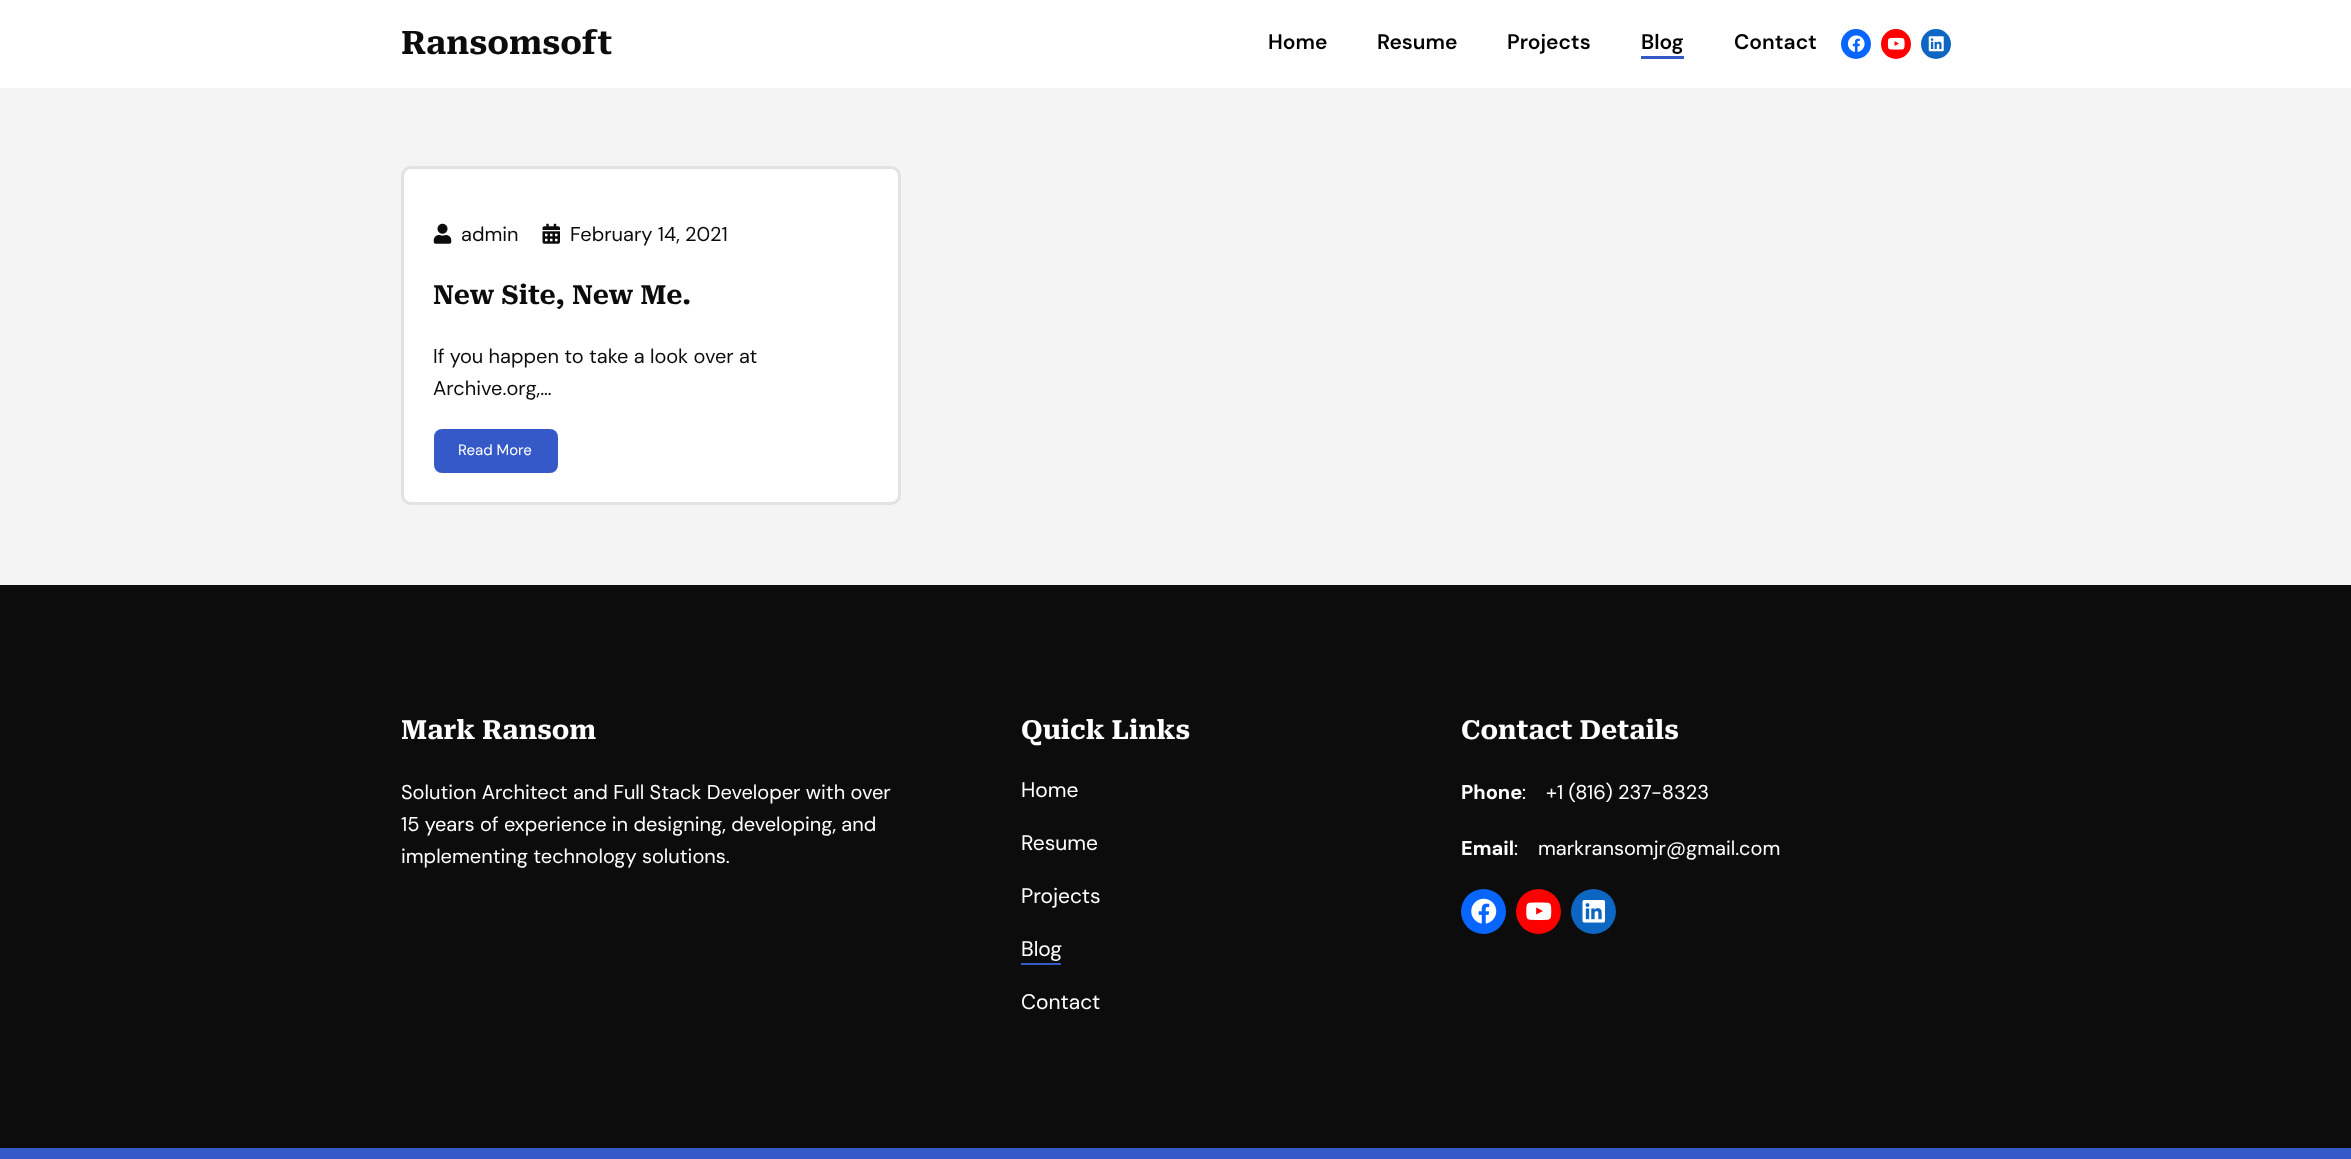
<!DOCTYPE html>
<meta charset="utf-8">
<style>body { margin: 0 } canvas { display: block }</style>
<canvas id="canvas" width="2351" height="1159"></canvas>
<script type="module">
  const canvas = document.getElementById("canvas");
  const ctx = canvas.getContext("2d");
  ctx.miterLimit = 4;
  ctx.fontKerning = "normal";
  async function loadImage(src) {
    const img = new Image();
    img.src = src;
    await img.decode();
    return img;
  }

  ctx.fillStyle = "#f4f4f4";
  ctx.fillRect(0, 0, 2351, 1159);
  ctx.fillStyle = "#ffffff";
  ctx.fillRect(0, 0, 2351, 88);
  ctx.font = "bold 32.5px Roboto Serif";
  ctx.fillStyle = "#0c0c0c";
  ctx.fillText("Ransomsoft", 401, 54);
  ctx.font = "600 21px DM Sans";
  ctx.fillStyle = "#000000";
  ctx.fillText("Home", 1268, 49);
  ctx.fillText("Resume", 1377, 49);
  ctx.fillText("Projects", 1507, 49);
  ctx.fillText("Blog", 1641, 49);
  ctx.fillStyle = "#3559c7";
  ctx.fillRect(1641, 56, 43, 3);
  ctx.fillStyle = "#000000";
  ctx.fillText("Contact", 1734, 49);
  ctx.fillStyle = "#0866ff";
  ctx.beginPath();
  ctx.arc(1856, 44, 15, 0, Math.PI * 2);
  ctx.fill();
  ctx.drawImage(await loadImage("img1.png"), 1847, 35, 18, 17);
  ctx.fillStyle = "#ff0000";
  ctx.beginPath();
  ctx.arc(1896, 44, 15, 0, Math.PI * 2);
  ctx.fill();
  ctx.drawImage(await loadImage("img2.png"), 1887, 37, 18, 13);
  ctx.fillStyle = "#0d66c2";
  ctx.beginPath();
  ctx.arc(1936, 44, 15, 0, Math.PI * 2);
  ctx.fill();
  ctx.drawImage(await loadImage("img3.png"), 1928, 36, 16, 16);
  ctx.fillStyle = "#ffffff";
  ctx.beginPath();
  ctx.roundRect(401, 166, 500, 339, 10);
  ctx.fill();
  ctx.beginPath();
  ctx.roundRect(402.5, 167.5, 497, 336, 8.5);
  ctx.strokeStyle = "rgba(13, 13, 13, 0.12)";
  ctx.lineWidth = 3;
  ctx.stroke();
  ctx.drawImage(await loadImage("img4.png"), 433, 223, 19, 21);
  ctx.font = "20px DM Sans";
  ctx.fillStyle = "#0c0c0c";
  ctx.fillText("admin", 461, 241);
  ctx.drawImage(await loadImage("img5.png"), 542, 223, 18, 21);
  ctx.fillText("February 14, 2021", 570, 241);
  ctx.font = "bold 26.25px Roboto Serif";
  ctx.fillText("New Site, New Me.", 433, 304);
  ctx.font = "20px DM Sans";
  ctx.fillText("If you happen to take a look over at", 433, 363);
  ctx.fillText("Archive.org,…", 433, 395);
  ctx.fillStyle = "#3559c7";
  ctx.beginPath();
  ctx.roundRect(434, 429, 124, 44, 8);
  ctx.fill();
  ctx.font = "15px DM Sans";
  ctx.fillStyle = "#ffffff";
  ctx.fillText("Read More", 458, 455);
  ctx.fillStyle = "#0c0c0c";
  ctx.fillRect(0, 585, 2351, 563);
  ctx.font = "bold 26.25px Roboto Serif";
  ctx.fillStyle = "#ffffff";
  ctx.fillText("Mark Ransom", 401, 739);
  ctx.font = "20px DM Sans";
  ctx.fillText("Solution Architect and Full Stack Developer with over", 401, 799);
  ctx.fillText("15 years of experience in designing, developing, and", 401, 831);
  ctx.fillText("implementing technology solutions.", 401, 863);
  ctx.font = "bold 26.25px Roboto Serif";
  ctx.fillText("Quick Links", 1021, 739);
  ctx.font = "21px DM Sans";
  ctx.fillText("Home", 1021, 797);
  ctx.fillText("Resume", 1021, 850);
  ctx.fillText("Projects", 1021, 903);
  ctx.fillText("Blog", 1021, 956);
  ctx.fillStyle = "#3559c7";
  ctx.fillRect(1021, 963, 40, 2);
  ctx.fillStyle = "#ffffff";
  ctx.fillText("Contact", 1021, 1009);
  ctx.font = "bold 26.25px Roboto Serif";
  ctx.fillText("Contact Details", 1461, 739);
  ctx.font = "bold 20px DM Sans";
  ctx.fillText("Phone", 1461, 799);
  ctx.font = "20px DM Sans";
  ctx.fillText(":", 1522, 799);
  ctx.fillText("+1 (816) 237-8323", 1546, 799);
  ctx.font = "bold 20px DM Sans";
  ctx.fillText("Email", 1461, 855);
  ctx.font = "20px DM Sans";
  ctx.fillText(":", 1514, 855);
  ctx.fillText("markransomjr@gmail.com", 1538, 855);
  ctx.fillStyle = "#0866ff";
  ctx.beginPath();
  ctx.arc(1483.5, 911.5, 22.5, 0, Math.PI * 2);
  ctx.fill();
  ctx.drawImage(await loadImage("img6.png"), 1471, 898, 26, 26);
  ctx.fillStyle = "#ff0000";
  ctx.beginPath();
  ctx.arc(1538.5, 911.5, 22.5, 0, Math.PI * 2);
  ctx.fill();
  ctx.drawImage(await loadImage("img7.png"), 1526, 902, 26, 19);
  ctx.fillStyle = "#0d66c2";
  ctx.beginPath();
  ctx.arc(1593.5, 911.5, 22.5, 0, Math.PI * 2);
  ctx.fill();
  ctx.drawImage(await loadImage("img8.png"), 1582, 900, 23, 23);
  ctx.fillStyle = "#3559c7";
  ctx.fillRect(0, 1148, 2351, 11);
</script>
